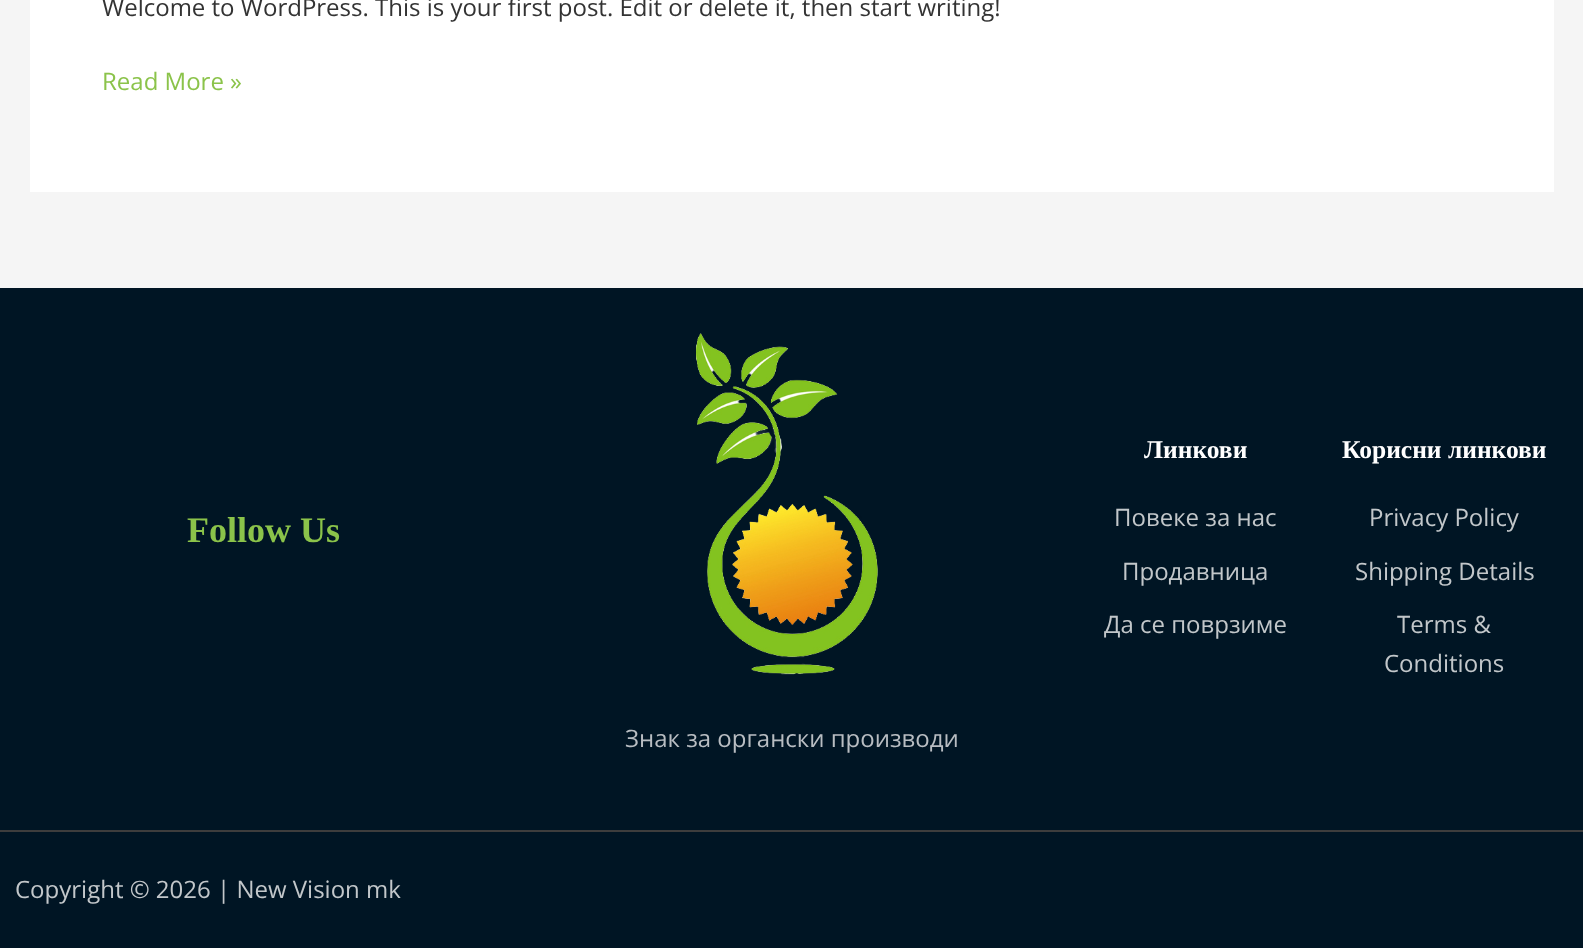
<!DOCTYPE html>
<meta charset="utf-8">
<style>body { margin: 0 } canvas { display: block }</style>
<canvas id="canvas" width="1583" height="948"></canvas>
<script type="module">
  const canvas = document.getElementById("canvas");
  const ctx = canvas.getContext("2d");
  ctx.miterLimit = 4;
  ctx.fontKerning = "normal";
  async function loadImage(src) {
    const img = new Image();
    img.src = src;
    await img.decode();
    return img;
  }

  ctx.fillStyle = "#f5f5f5";
  ctx.fillRect(0, 0, 1583, 948);
  ctx.fillStyle = "#ffffff";
  ctx.fillRect(30, 0, 1524, 192);
  ctx.font = "24px Open Sans";
  ctx.fillStyle = "#333333";
  ctx.fillText("Welcome to WordPress. This is your first post. Edit or delete it, then start writing!", 102, 16);
  ctx.fillStyle = "#8bc34a";
  ctx.fillText("Read More »", 102, 90);
  ctx.fillStyle = "#001524";
  ctx.fillRect(0, 288, 1583, 542);
  ctx.font = "bold 36px Liberation Serif";
  ctx.fillStyle = "#8bc34a";
  ctx.fillText("Follow Us", 187, 542);
  ctx.font = "bold 25.5px Liberation Serif";
  ctx.fillStyle = "#ffffff";
  ctx.fillText("Линкови", 1144, 458);
  ctx.font = "24px Open Sans";
  ctx.fillStyle = "#c2c7ca";
  ctx.fillText("Повеке за нас", 1114, 526);
  ctx.fillText("Продавница", 1122, 580);
  ctx.fillText("Да се поврзиме", 1104, 633);
  ctx.font = "bold 25.5px Liberation Serif";
  ctx.fillStyle = "#ffffff";
  ctx.fillText("Корисни линкови", 1342, 458);
  ctx.font = "24px Open Sans";
  ctx.fillStyle = "#c2c7ca";
  ctx.fillText("Privacy Policy", 1369, 526);
  ctx.fillText("Shipping Details", 1355, 580);
  ctx.fillText("Terms &", 1397, 633);
  ctx.fillText("Conditions", 1384, 672);
  ctx.drawImage(await loadImage("img1.png"), 696, 333, 182, 342);
  ctx.fillStyle = "#b8bdc2";
  ctx.fillText("Знак за органски производи", 625, 747);
  ctx.fillStyle = "#001524";
  ctx.fillRect(0, 832, 1583, 116);
  ctx.fillStyle = "#3d3d3d";
  ctx.fillRect(0, 830, 1583, 2);
  ctx.fillStyle = "#c2c7ca";
  ctx.fillText("Copyright © 2026 | New Vision mk", 15, 898);
</script>
